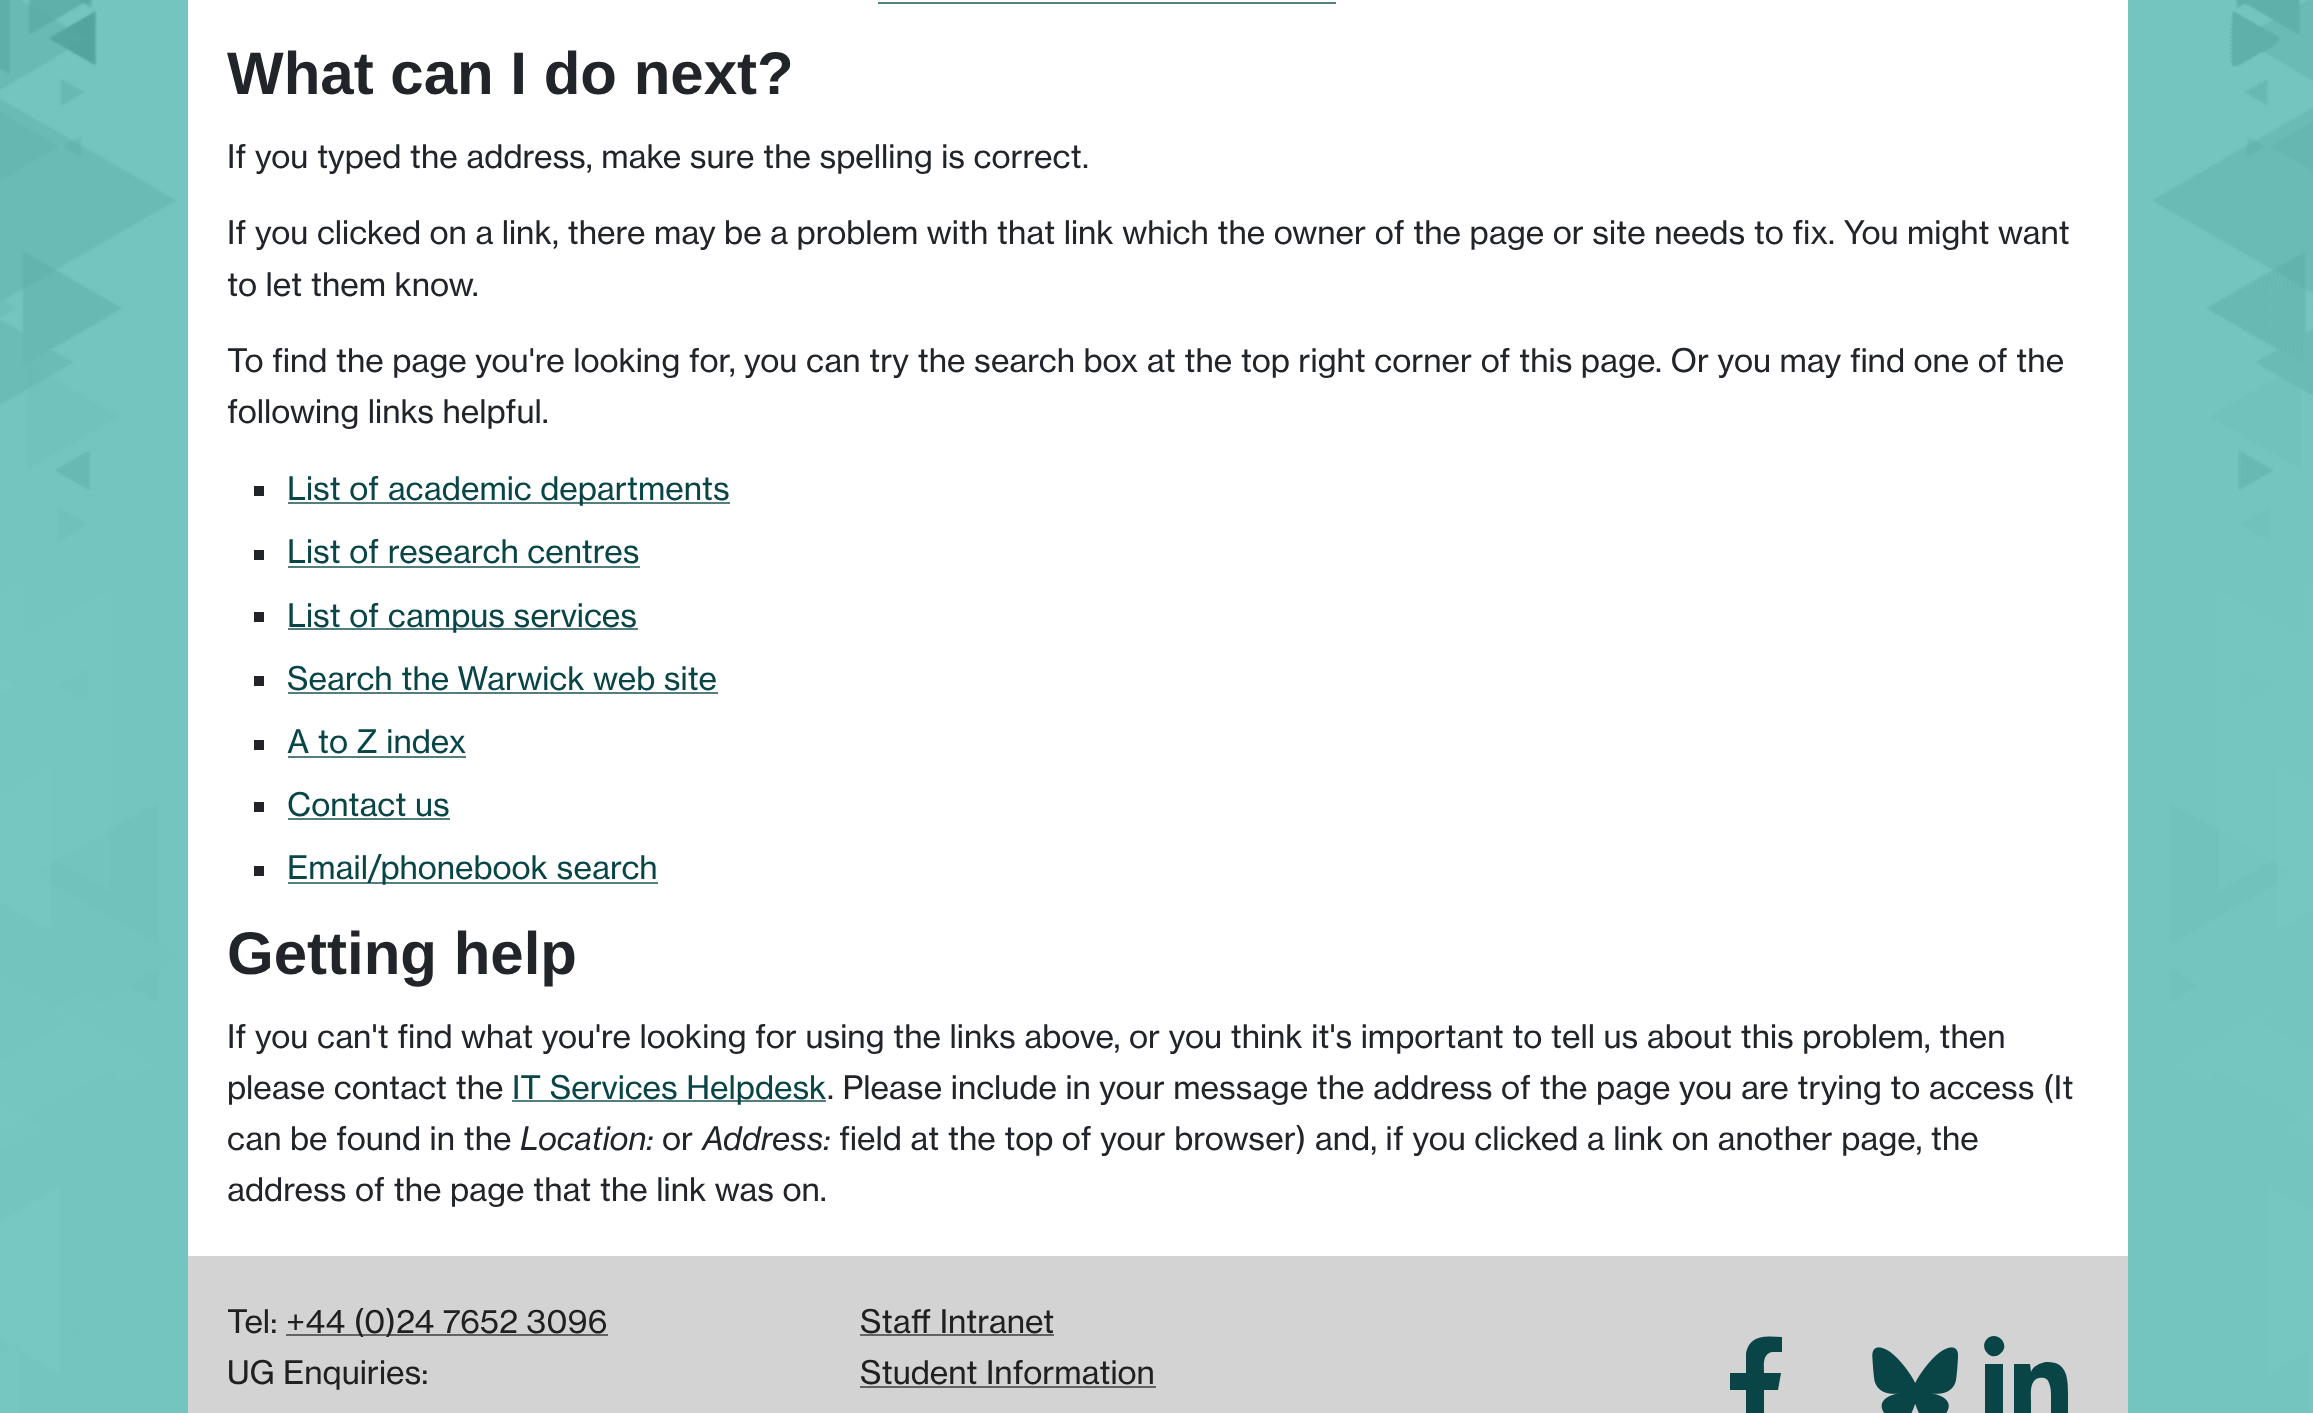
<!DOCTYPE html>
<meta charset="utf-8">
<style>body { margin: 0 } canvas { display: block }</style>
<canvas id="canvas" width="2313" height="1413"></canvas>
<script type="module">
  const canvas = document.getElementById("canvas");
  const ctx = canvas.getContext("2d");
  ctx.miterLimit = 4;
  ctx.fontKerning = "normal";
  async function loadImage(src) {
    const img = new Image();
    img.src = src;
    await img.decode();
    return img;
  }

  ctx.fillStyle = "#ffffff";
  ctx.fillRect(0, 0, 2313, 1413);
  ctx.drawImage(await loadImage("img1.png"), 0, 0, 188, 1413);
  ctx.fillStyle = "#537d7e";
  ctx.fillRect(878, 2, 458, 2);
  ctx.font = "bold 60px Liberation Sans";
  ctx.fillStyle = "#212529";
  ctx.fillText("What can I do next?", 227, 94);
  ctx.font = "32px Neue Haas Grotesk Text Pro";
  ctx.fillText("If you typed the address, make sure the spelling is correct.", 227, 168);
  ctx.fillText("If you clicked on a link, there may be a problem with that link which the owner of the page or site needs to fix. You might want", 227, 244);
  ctx.fillText("to let them know.", 227, 296);
  ctx.fillText("To find the page you're looking for, you can try the search box at the top right corner of this page. Or you may find one of the", 227, 372);
  ctx.fillText("following links helpful.", 227, 423);
  ctx.fillRect(254, 486, 10, 10);
  ctx.fillStyle = "#537d7e";
  ctx.fillRect(288, 502, 442, 2);
  ctx.fillStyle = "#094547";
  ctx.fillText("List of academic departments", 287, 500);
  ctx.fillStyle = "#212529";
  ctx.fillRect(254, 550, 10, 10);
  ctx.fillStyle = "#094547";
  ctx.fillText("List of research centres", 287, 563);
  ctx.fillStyle = "#537d7e";
  ctx.fillRect(288, 566, 352, 2);
  ctx.fillStyle = "#212529";
  ctx.fillRect(254, 612, 10, 10);
  ctx.fillStyle = "#537d7e";
  ctx.fillRect(288, 628, 350, 2);
  ctx.fillStyle = "#094547";
  ctx.fillText("List of campus services", 287, 627);
  ctx.fillStyle = "#212529";
  ctx.fillRect(254, 676, 10, 10);
  ctx.fillStyle = "#094547";
  ctx.fillText("Search the Warwick web site", 287, 690);
  ctx.fillStyle = "#537d7e";
  ctx.fillRect(288, 692, 430, 2);
  ctx.fillStyle = "#212529";
  ctx.fillRect(254, 740, 10, 10);
  ctx.fillStyle = "#094547";
  ctx.fillText("A to Z index", 287, 753);
  ctx.fillStyle = "#537d7e";
  ctx.fillRect(288, 756, 178, 2);
  ctx.fillStyle = "#212529";
  ctx.fillRect(254, 802, 10, 10);
  ctx.fillStyle = "#094547";
  ctx.fillText("Contact us", 287, 816);
  ctx.fillStyle = "#537d7e";
  ctx.fillRect(288, 818, 162, 2);
  ctx.fillStyle = "#212529";
  ctx.fillRect(254, 866, 10, 10);
  ctx.fillStyle = "#537d7e";
  ctx.fillRect(288, 882, 370, 2);
  ctx.fillStyle = "#094547";
  ctx.fillText("Email/phonebook search", 287, 879);
  ctx.font = "bold 60px Liberation Sans";
  ctx.fillStyle = "#212529";
  ctx.fillText("Getting help", 227, 974);
  ctx.font = "32px Neue Haas Grotesk Text Pro";
  ctx.fillText("If you can't find what you're looking for using the links above, or you think it's important to tell us about this problem, then", 227, 1048);
  ctx.fillText("please contact the", 227, 1099);
  ctx.fillStyle = "#537d7e";
  ctx.fillRect(512, 1100, 314, 2);
  ctx.fillStyle = "#094547";
  ctx.fillText("IT Services Helpdesk", 512, 1099);
  ctx.fillStyle = "#212529";
  ctx.fillText(". Please include in your message the address of the page you are trying to access (It", 827, 1099);
  ctx.fillText("can be found in the", 227, 1150);
  ctx.font = "italic 32px Neue Haas Grotesk Text Pro";
  ctx.fillText("Location:", 520, 1150);
  ctx.font = "32px Neue Haas Grotesk Text Pro";
  ctx.fillText("or", 662, 1150);
  ctx.font = "italic 32px Neue Haas Grotesk Text Pro";
  ctx.fillText("Address:", 702, 1150);
  ctx.font = "32px Neue Haas Grotesk Text Pro";
  ctx.fillText("field at the top of your browser) and, if you clicked a link on another page, the", 839, 1150);
  ctx.fillText("address of the page that the link was on.", 227, 1201);
  ctx.fillStyle = "#d3d3d3";
  ctx.fillRect(188, 1256, 1940, 157);
  ctx.fillStyle = "#202020";
  ctx.fillText("Tel:", 227, 1333);
  ctx.fillStyle = "#636363";
  ctx.fillRect(286, 1334, 322, 2);
  ctx.fillStyle = "#202020";
  ctx.fillText("+44 (0)24 7652 3096", 286, 1333);
  ctx.fillText("UG Enquiries:", 227, 1384);
  ctx.fillText("Staff Intranet", 860, 1333);
  ctx.fillStyle = "#636363";
  ctx.fillRect(860, 1334, 194, 2);
  ctx.fillStyle = "#202020";
  ctx.fillText("Student Information", 860, 1384);
  ctx.fillStyle = "#636363";
  ctx.fillRect(860, 1386, 296, 2);
  ctx.fillStyle = "#094547";
  ctx.beginPath();
  ctx.moveTo(1778, 1390);
  ctx.lineTo(1764, 1390);
  ctx.lineTo(1764, 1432);
  ctx.lineTo(1746, 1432);
  ctx.lineTo(1746, 1390);
  ctx.lineTo(1730, 1390);
  ctx.lineTo(1730, 1373);
  ctx.lineTo(1746, 1373);
  ctx.lineTo(1746, 1354);
  ctx.bezierCurveTo(1749, 1334, 1767, 1336, 1782, 1337);
  ctx.lineTo(1782, 1352);
  ctx.lineTo(1772, 1352);
  ctx.bezierCurveTo(1762, 1354, 1764, 1366, 1764, 1373);
  ctx.lineTo(1781, 1373);
  ctx.closePath();
  ctx.fill();
  ctx.drawImage(await loadImage("img2.png"), 1872, 1347, 86, 66);
  ctx.beginPath();
  ctx.moveTo(2003, 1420);
  ctx.lineTo(1985, 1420);
  ctx.lineTo(1985, 1364);
  ctx.lineTo(2003, 1364);
  ctx.closePath();
  ctx.moveTo(2001, 1353);
  ctx.bezierCurveTo(1992, 1363, 1978, 1348, 1987, 1339);
  ctx.bezierCurveTo(1996, 1330, 2011, 1344, 2001, 1353);
  ctx.closePath();
  ctx.moveTo(2068, 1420);
  ctx.lineTo(2051, 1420);
  ctx.lineTo(2051, 1397);
  ctx.bezierCurveTo(2051, 1392, 2051, 1388, 2049, 1383);
  ctx.bezierCurveTo(2048, 1378, 2043, 1377, 2039, 1378);
  ctx.bezierCurveTo(2029, 1380, 2031, 1395, 2031, 1402);
  ctx.lineTo(2031, 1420);
  ctx.lineTo(2014, 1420);
  ctx.lineTo(2014, 1364);
  ctx.lineTo(2030, 1364);
  ctx.lineTo(2031, 1372);
  ctx.bezierCurveTo(2033, 1366, 2040, 1363, 2046, 1362);
  ctx.bezierCurveTo(2067, 1361, 2068, 1378, 2068, 1394);
  ctx.closePath();
  ctx.fill();
  ctx.drawImage(await loadImage("img3.png"), 2128, 0, 185, 1413);
</script>
